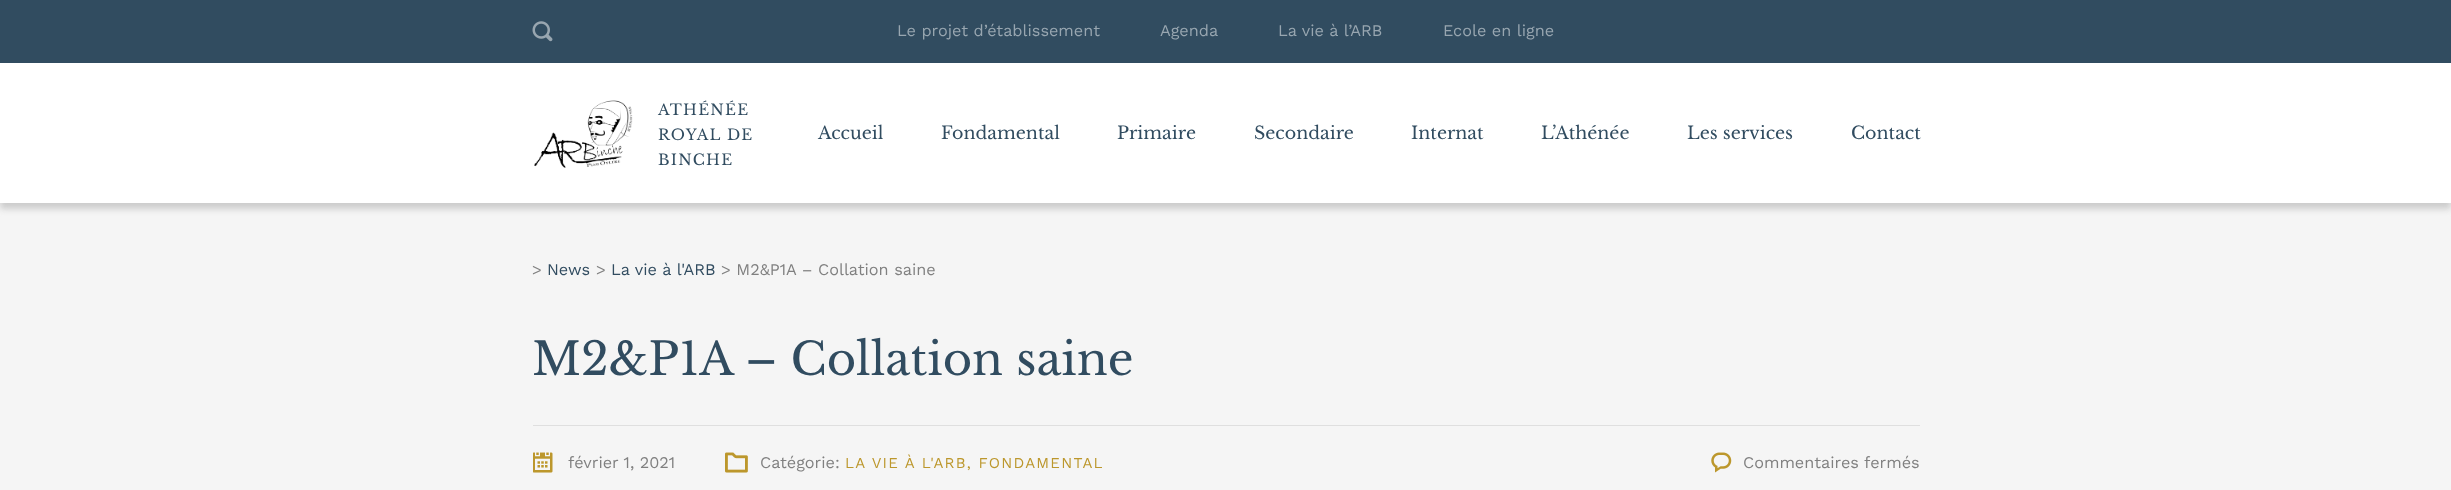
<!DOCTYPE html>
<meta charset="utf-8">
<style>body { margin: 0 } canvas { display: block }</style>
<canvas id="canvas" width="2451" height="490"></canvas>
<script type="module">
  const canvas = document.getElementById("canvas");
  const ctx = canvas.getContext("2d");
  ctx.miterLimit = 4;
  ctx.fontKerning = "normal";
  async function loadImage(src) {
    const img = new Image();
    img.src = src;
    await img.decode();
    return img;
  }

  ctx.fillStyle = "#f5f5f5";
  ctx.fillRect(0, 0, 2451, 490);
  ctx.fillStyle = "#cccccc";
  ctx.filter = "blur(3px)";
  ctx.beginPath();
  ctx.rect(0, 6, 2451, 203);
  ctx.fill();
  ctx.filter = "none";
  ctx.fillStyle = "#ffffff";
  ctx.fillRect(0, 63, 2451, 140);
  ctx.fillStyle = "#314c60";
  ctx.fillRect(0, 0, 2451, 63);
  ctx.drawImage(await loadImage("img1.png"), 532, 21, 21, 21);
  ctx.font = "16.25px Work Sans";
  ctx.fillStyle = "#98a6b0";
  ctx.fillText("Le projet d’établissement", 897, 36);
  ctx.fillText("Agenda", 1160, 36);
  ctx.fillText("La vie à l’ARB", 1278, 36);
  ctx.fillText("Ecole en ligne", 1443, 36);
  ctx.drawImage(await loadImage("img2.png"), 534, 100, 99, 68);
  ctx.letterSpacing = "1.25px";
  ctx.font = "15px Libre Baskerville";
  ctx.fillStyle = "#314c60";
  ctx.fillText("ATHÉNÉE", 658, 115);
  ctx.fillText("ROYAL DE", 658, 140);
  ctx.fillText("BINCHE", 658, 165);
  ctx.letterSpacing = "0px";
  ctx.font = "17.5px Libre Baskerville";
  ctx.fillText("Accueil", 818, 139);
  ctx.fillText("Fondamental", 941, 139);
  ctx.fillText("Primaire", 1117, 139);
  ctx.fillText("Secondaire", 1254, 139);
  ctx.fillText("Internat", 1411, 139);
  ctx.fillText("L’Athénée", 1541, 139);
  ctx.fillText("Les services", 1687, 139);
  ctx.fillText("Contact", 1851, 139);
  ctx.font = "16.25px Work Sans";
  ctx.fillStyle = "#808080";
  ctx.fillText(">", 532, 275);
  ctx.fillStyle = "#314c60";
  ctx.fillText("News", 547, 275);
  ctx.fillStyle = "#808080";
  ctx.fillText(">", 596, 275);
  ctx.fillStyle = "#314c60";
  ctx.fillText("La vie à l'ARB", 611, 275);
  ctx.fillStyle = "#808080";
  ctx.fillText("> M2&P1A – Collation saine", 721, 275);
  ctx.font = "45px Libre Baskerville";
  ctx.fillStyle = "#314c60";
  ctx.fillText("M2&P1A – Collation saine", 532, 375);
  ctx.fillStyle = "#dfdfdf";
  ctx.fillRect(533, 425, 1387, 1);
  ctx.drawImage(await loadImage("img3.png"), 533, 452, 20, 21);
  ctx.font = "16.25px Work Sans";
  ctx.fillStyle = "#808080";
  ctx.fillText("février 1, 2021", 568, 468);
  ctx.drawImage(await loadImage("img4.png"), 725, 452, 23, 21);
  ctx.fillText("Catégorie:", 760, 468);
  ctx.letterSpacing = "1.25px";
  ctx.font = "15px Work Sans";
  ctx.fillStyle = "#bc972c";
  ctx.fillText("LA VIE À L'ARB, FONDAMENTAL", 845, 468);
  ctx.drawImage(await loadImage("img5.png"), 1711, 452, 21, 21);
  ctx.letterSpacing = "0px";
  ctx.font = "16.25px Work Sans";
  ctx.fillStyle = "#808080";
  ctx.fillText("Commentaires fermés", 1743, 468);
</script>
